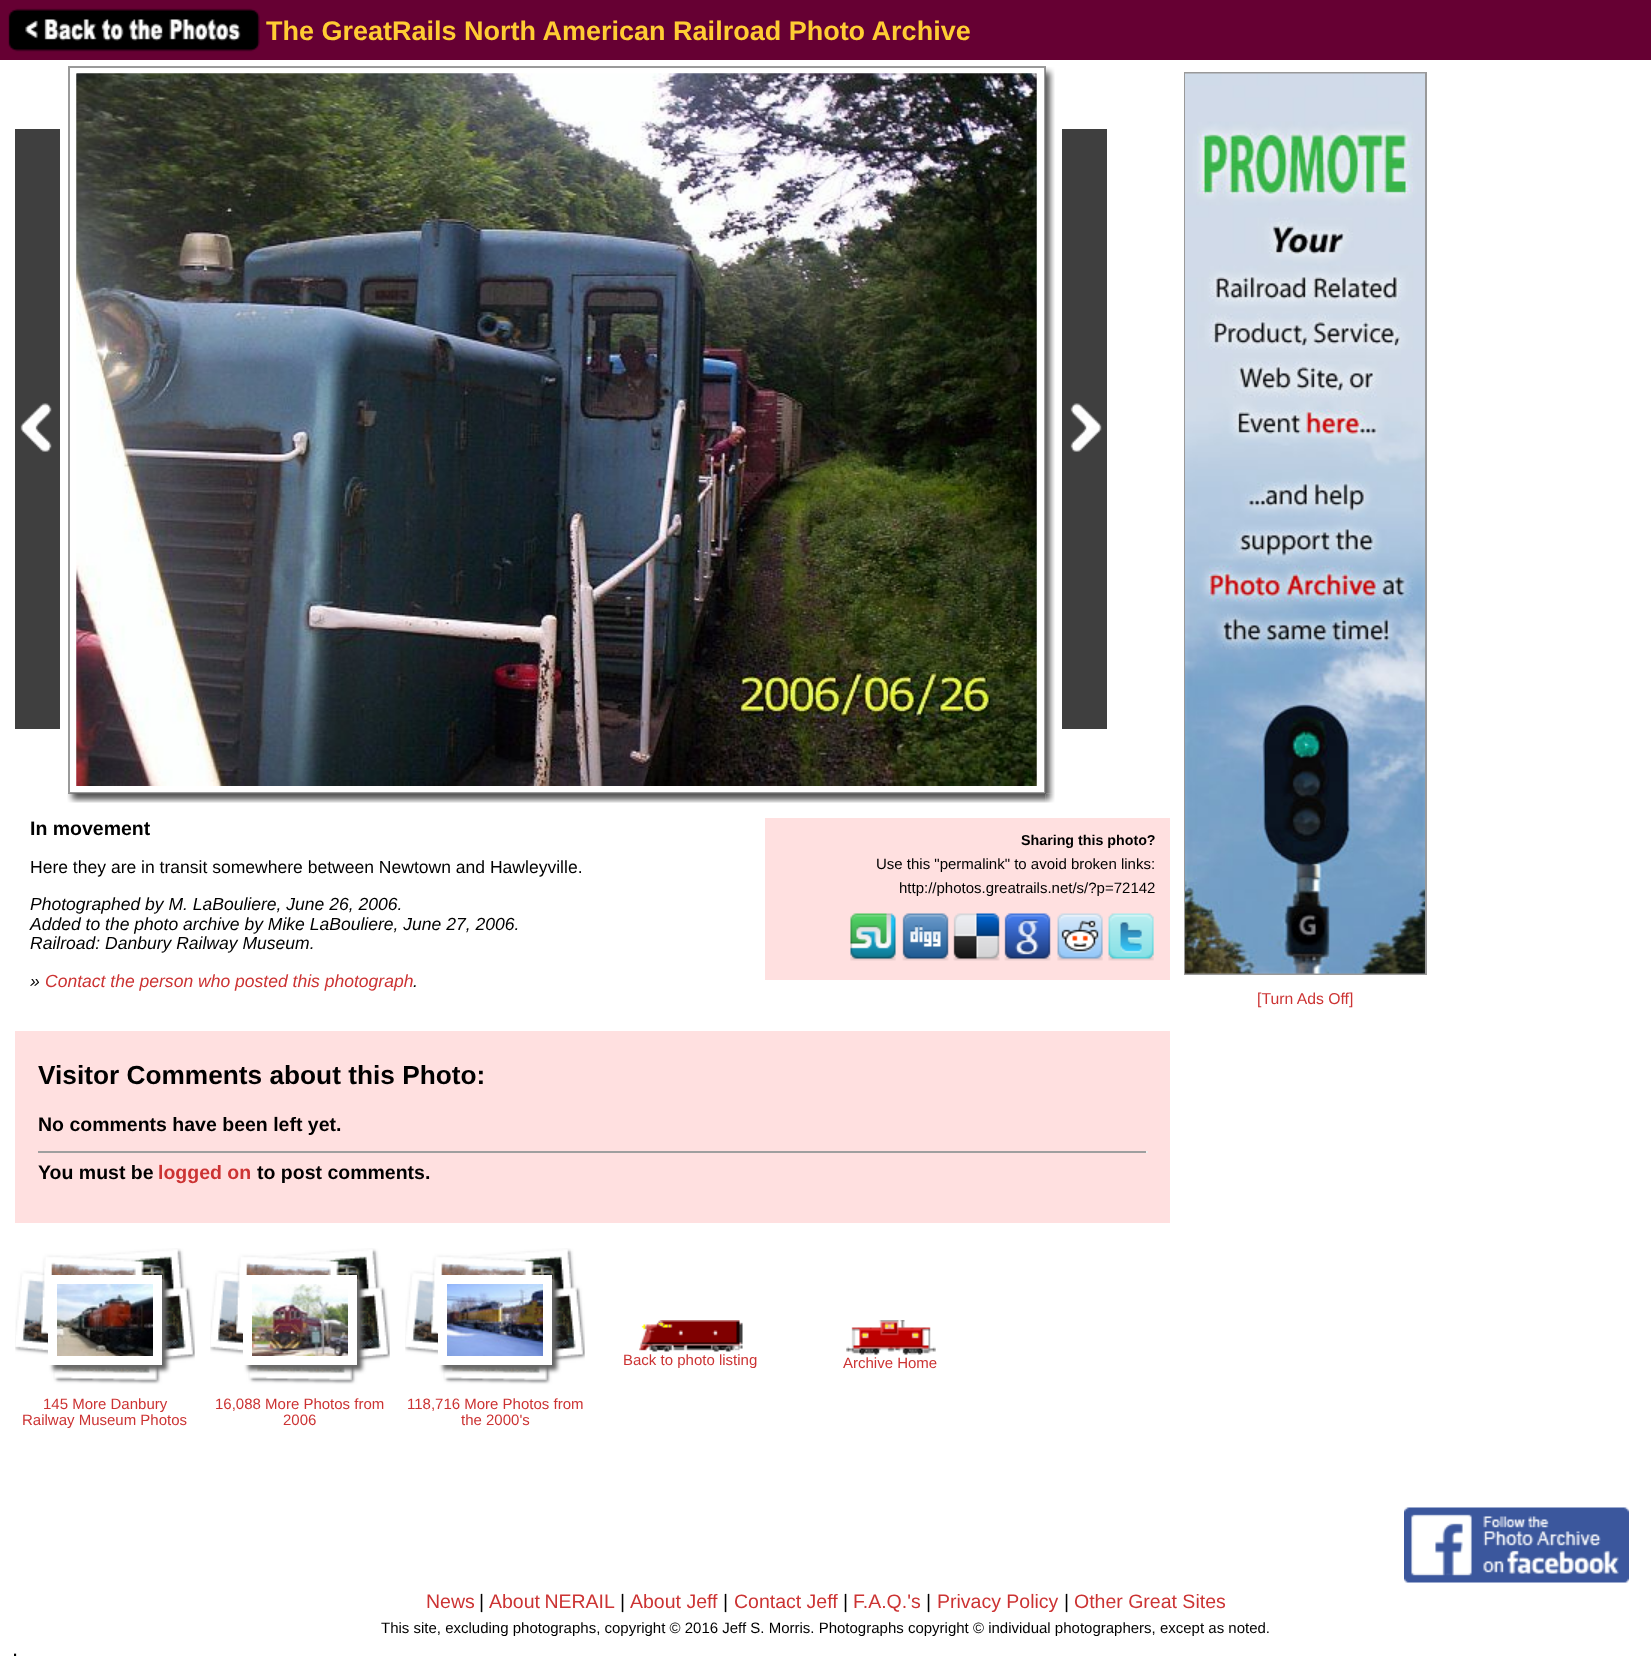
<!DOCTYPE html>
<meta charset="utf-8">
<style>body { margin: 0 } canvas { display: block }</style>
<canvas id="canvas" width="1651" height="1656"></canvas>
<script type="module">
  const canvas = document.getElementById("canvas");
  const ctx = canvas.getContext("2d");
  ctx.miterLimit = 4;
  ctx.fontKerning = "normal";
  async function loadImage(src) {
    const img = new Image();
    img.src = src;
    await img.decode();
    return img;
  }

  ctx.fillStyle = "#ffffff";
  ctx.fillRect(0, 0, 1651, 1656);
  ctx.fillStyle = "#660033";
  ctx.fillRect(0, 0, 1651, 60);
  ctx.drawImage(await loadImage("img1.png"), 8, 8, 252, 44);
  ctx.font = "bold 27px Liberation Sans";
  ctx.fillStyle = "#ffcc33";
  ctx.fillText("The GreatRails North American Railroad Photo Archive", 266, 40);
  ctx.drawImage(await loadImage("img2.png"), 15, 129, 45, 600);
  ctx.strokeStyle = "#9a9a9a";
  ctx.lineWidth = 2;
  ctx.strokeRect(69, 67, 976, 726);
  ctx.drawImage(await loadImage("img3.png"), 76, 73, 961, 713);
  ctx.drawImage(await loadImage("img4.png"), 76, 73, 961, 713);
  ctx.drawImage(await loadImage("img5.png"), 1045, 67, 10, 727);
  ctx.drawImage(await loadImage("img6.png"), 1062, 129, 45, 600);
  ctx.drawImage(await loadImage("img7.png"), 67, 793, 979, 10);
  ctx.drawImage(await loadImage("img8.png"), 1045, 793, 10, 10);
  ctx.font = "bold 19.5px Liberation Sans";
  ctx.fillStyle = "#000000";
  ctx.fillText("In movement", 30, 835);
  ctx.font = "17.55px Liberation Sans";
  ctx.fillText("Here they are in transit somewhere between Newtown and Hawleyville.", 30, 873);
  ctx.font = "italic 17.55px Liberation Sans";
  ctx.fillText("Photographed by M. LaBouliere, June 26, 2006.", 30, 910);
  ctx.fillText("Added to the photo archive by Mike LaBouliere, June 27, 2006.", 30, 930);
  ctx.fillText("Railroad: Danbury Railway Museum.", 30, 949);
  ctx.fillText("»", 30, 987);
  ctx.fillStyle = "#cc3333";
  ctx.fillText("Contact the person who posted this photograph", 45, 987);
  ctx.fillStyle = "#000000";
  ctx.fillText(".", 413, 987);
  ctx.fillStyle = "#ffe0e0";
  ctx.fillRect(765, 818, 405, 162);
  ctx.font = "bold 14.25px Liberation Sans";
  ctx.fillStyle = "#000000";
  ctx.fillText("Sharing this photo?", 1021, 845);
  ctx.font = "15px Liberation Sans";
  ctx.fillText("Use this \"permalink\" to avoid broken links:", 876, 869);
  ctx.fillText("http://photos.greatrails.net/s/?p=72142", 899, 893);
  ctx.drawImage(await loadImage("img9.png"), 850, 913, 46, 48);
  ctx.drawImage(await loadImage("img10.png"), 902, 913, 47, 48);
  ctx.drawImage(await loadImage("img11.png"), 953, 913, 47, 48);
  ctx.drawImage(await loadImage("img12.png"), 1004, 913, 47, 48);
  ctx.drawImage(await loadImage("img13.png"), 1057, 913, 46, 48);
  ctx.drawImage(await loadImage("img14.png"), 1108, 913, 46, 48);
  ctx.strokeStyle = "#999999";
  ctx.strokeRect(1185, 73, 241, 901);
  ctx.drawImage(await loadImage("img15.png"), 1185, 73, 240, 901);
  ctx.font = "15.75px Liberation Sans";
  ctx.fillStyle = "#cc3333";
  ctx.fillText("[Turn Ads Off]", 1257, 1004);
  ctx.fillStyle = "#ffe0e0";
  ctx.fillRect(15, 1031, 1155, 192);
  ctx.font = "bold 26.25px Liberation Sans";
  ctx.fillStyle = "#000000";
  ctx.fillText("Visitor Comments about this Photo:", 38, 1084);
  ctx.font = "bold 19.5px Liberation Sans";
  ctx.fillText("No comments have been left yet.", 38, 1131);
  ctx.fillStyle = "#9f9f9f";
  ctx.fillRect(38, 1151, 1110, 2);
  ctx.fillStyle = "#eeeeee";
  ctx.fillRect(1146, 1151, 2, 2);
  ctx.fillStyle = "#000000";
  ctx.fillText("You must be", 38, 1179);
  ctx.fillStyle = "#cc3333";
  ctx.fillText("logged on", 158, 1179);
  ctx.fillStyle = "#000000";
  ctx.fillText("to post comments.", 257, 1179);
  ctx.drawImage(await loadImage("img16.png"), 639, 1320, 104, 32);
  ctx.font = "15px Liberation Sans";
  ctx.fillStyle = "#cc3333";
  ctx.fillText("Back to photo listing", 623, 1365);
  ctx.drawImage(await loadImage("img17.png"), 846, 1320, 90, 35);
  ctx.fillText("Archive Home", 843, 1368);
  ctx.drawImage(await loadImage("img18.png"), 15, 1248, 180, 137);
  ctx.fillStyle = "#666666";
  ctx.filter = "blur(2px)";
  ctx.beginPath();
  ctx.rect(53, 1280, 114, 90);
  ctx.fill();
  ctx.filter = "none";
  ctx.fillStyle = "#ffffff";
  ctx.fillRect(48, 1275, 114, 90);
  ctx.drawImage(await loadImage("img19.png"), 57, 1284, 96, 72);
  ctx.fillStyle = "#cc3333";
  ctx.fillText("145 More Danbury", 43, 1409);
  ctx.fillText("Railway Museum Photos", 22, 1425);
  ctx.drawImage(await loadImage("img18.png"), 210, 1248, 180, 137);
  ctx.fillStyle = "#666666";
  ctx.filter = "blur(2px)";
  ctx.beginPath();
  ctx.rect(248, 1280, 114, 90);
  ctx.fill();
  ctx.filter = "none";
  ctx.fillStyle = "#ffffff";
  ctx.fillRect(243, 1275, 114, 90);
  ctx.drawImage(await loadImage("img20.png"), 252, 1284, 96, 72);
  ctx.fillStyle = "#cc3333";
  ctx.fillText("16,088 More Photos from", 215, 1409);
  ctx.fillText("2006", 283, 1425);
  ctx.drawImage(await loadImage("img21.png"), 405, 1248, 180, 137);
  ctx.fillStyle = "#666666";
  ctx.filter = "blur(2px)";
  ctx.beginPath();
  ctx.rect(443, 1280, 114, 90);
  ctx.fill();
  ctx.filter = "none";
  ctx.fillStyle = "#ffffff";
  ctx.fillRect(438, 1275, 114, 90);
  ctx.drawImage(await loadImage("img22.png"), 447, 1284, 96, 72);
  ctx.fillStyle = "#cc3333";
  ctx.fillText("118,716 More Photos from", 407, 1409);
  ctx.fillText("the 2000's", 461, 1425);
  ctx.drawImage(await loadImage("img23.png"), 1404, 1507, 225, 76);
  ctx.font = "19.5px Liberation Sans";
  ctx.fillText("News", 426, 1608);
  ctx.fillStyle = "#000000";
  ctx.fillText("|", 479, 1608);
  ctx.wordSpacing = "-1px";
  ctx.fillStyle = "#cc3333";
  ctx.fillText("About NERAIL", 489, 1608);
  ctx.wordSpacing = "0px";
  ctx.fillStyle = "#000000";
  ctx.fillText("|", 620, 1608);
  ctx.fillStyle = "#cc3333";
  ctx.fillText("About Jeff", 630, 1608);
  ctx.fillStyle = "#000000";
  ctx.fillText("|", 723, 1608);
  ctx.fillStyle = "#cc3333";
  ctx.fillText("Contact Jeff", 734, 1608);
  ctx.fillStyle = "#000000";
  ctx.fillText("|", 843, 1608);
  ctx.fillStyle = "#cc3333";
  ctx.fillText("F.A.Q.'s", 853, 1608);
  ctx.fillStyle = "#000000";
  ctx.fillText("|", 926, 1608);
  ctx.fillStyle = "#cc3333";
  ctx.fillText("Privacy Policy", 937, 1608);
  ctx.fillStyle = "#000000";
  ctx.fillText("|", 1064, 1608);
  ctx.fillStyle = "#cc3333";
  ctx.fillText("Other Great Sites", 1074, 1608);
  ctx.font = "15px Liberation Sans";
  ctx.fillStyle = "#000000";
  ctx.fillText("This site, excluding photographs, copyright © 2016 Jeff S. Morris. Photographs copyright © individual photographers, except as noted.", 381, 1633);
  ctx.font = "22px Liberation Sans";
  ctx.fillText(".", 12, 1656);
</script>
